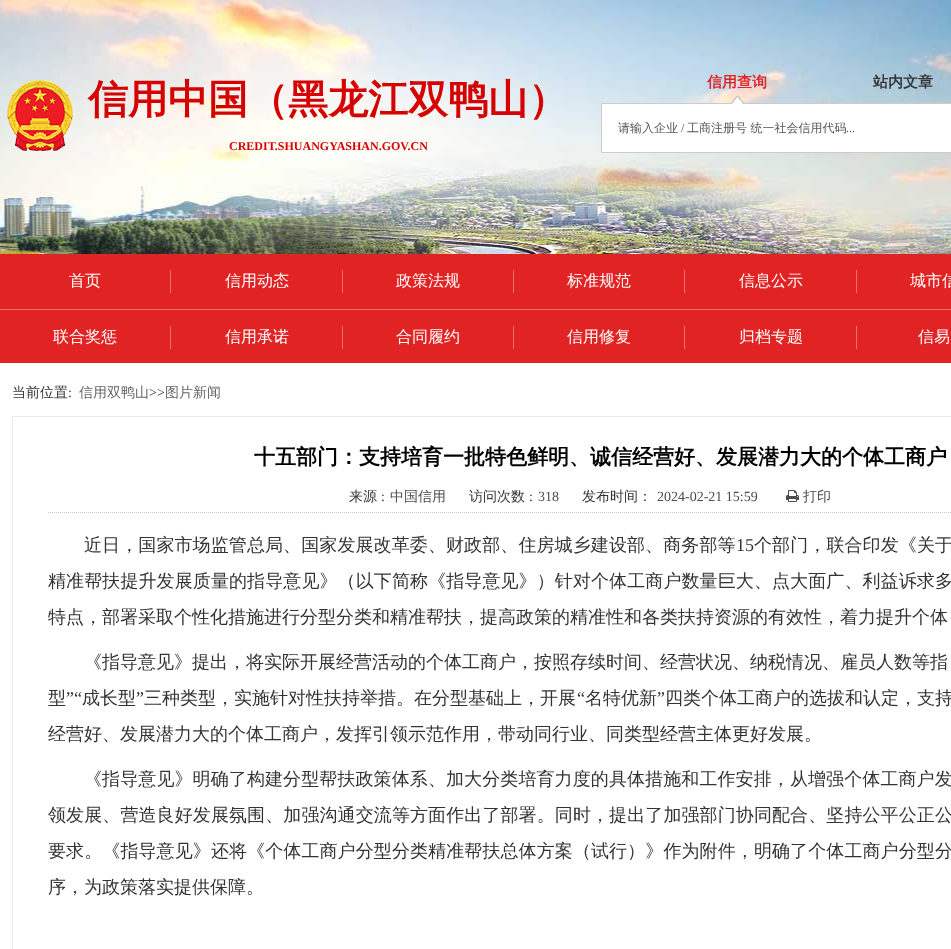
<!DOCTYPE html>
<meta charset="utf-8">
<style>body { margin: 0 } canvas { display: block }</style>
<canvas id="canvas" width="951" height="949"></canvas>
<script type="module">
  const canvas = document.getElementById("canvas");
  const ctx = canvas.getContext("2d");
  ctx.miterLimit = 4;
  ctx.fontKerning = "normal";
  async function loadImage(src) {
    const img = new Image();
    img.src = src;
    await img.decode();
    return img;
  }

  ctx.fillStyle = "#ffffff";
  ctx.fillRect(0, 0, 951, 949);
  ctx.drawImage(await loadImage("img1.png"), 0, 0, 951, 254);
  ctx.drawImage(await loadImage("img2.png"), 7, 80, 66, 71);
  ctx.font = "bold 40px WenQuanYi Zen Hei";
  ctx.fillStyle = "#d50201";
  ctx.fillText("信用中国（黑龙江双鸭山）", 88, 113);
  ctx.font = "bold 12px Liberation Serif";
  ctx.fillText("CREDIT.SHUANGYASHAN.GOV.CN", 229, 150);
  ctx.fillStyle = "#ffffff";
  ctx.beginPath();
  ctx.rect(601.5, 103.5, 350, 49);
  ctx.fill();
  ctx.strokeStyle = "#cccccc";
  ctx.stroke();
  ctx.drawImage(await loadImage("img3.png"), 731, 95, 13, 9);
  ctx.font = "bold 15px WenQuanYi Zen Hei";
  ctx.fillStyle = "#e22323";
  ctx.fillText("信用查询", 707, 87);
  ctx.fillStyle = "#333333";
  ctx.fillText("站内文章", 873, 87);
  ctx.font = "500 12px WenQuanYi Zen Hei";
  ctx.fillStyle = "#555555";
  ctx.fillText("请输入企业", 618, 132);
  ctx.font = "12px Liberation Serif";
  ctx.fillText("/", 681, 132);
  ctx.font = "500 12px WenQuanYi Zen Hei";
  ctx.fillText("工商注册号 统一社会信用代码", 687, 132);
  ctx.font = "12px Liberation Serif";
  ctx.fillText("...", 846, 132);
  ctx.fillStyle = "#e22323";
  ctx.fillRect(0, 254, 951, 109);
  ctx.fillStyle = "#ec7272";
  ctx.fillRect(0, 309, 951, 1);
  ctx.fillRect(170, 270, 1, 23);
  ctx.font = "500 16px WenQuanYi Zen Hei";
  ctx.fillStyle = "#ffffff";
  ctx.fillText("首页", 69, 286);
  ctx.fillStyle = "#ec7272";
  ctx.fillRect(342, 270, 1, 23);
  ctx.fillStyle = "#ffffff";
  ctx.fillText("信用动态", 225, 286);
  ctx.fillStyle = "#ec7272";
  ctx.fillRect(513, 270, 1, 23);
  ctx.fillStyle = "#ffffff";
  ctx.fillText("政策法规", 396, 286);
  ctx.fillStyle = "#ec7272";
  ctx.fillRect(684, 270, 1, 23);
  ctx.fillStyle = "#ffffff";
  ctx.fillText("标准规范", 567, 286);
  ctx.fillStyle = "#ec7272";
  ctx.fillRect(856, 270, 1, 23);
  ctx.fillStyle = "#ffffff";
  ctx.fillText("信息公示", 739, 286);
  ctx.fillText("城市信", 910, 286);
  ctx.fillStyle = "#ec7272";
  ctx.fillRect(170, 326, 1, 23);
  ctx.fillStyle = "#ffffff";
  ctx.fillText("联合奖惩", 53, 342);
  ctx.fillStyle = "#ec7272";
  ctx.fillRect(342, 326, 1, 23);
  ctx.fillStyle = "#ffffff";
  ctx.fillText("信用承诺", 225, 342);
  ctx.fillStyle = "#ec7272";
  ctx.fillRect(513, 326, 1, 23);
  ctx.fillStyle = "#ffffff";
  ctx.fillText("合同履约", 396, 342);
  ctx.fillStyle = "#ec7272";
  ctx.fillRect(684, 326, 1, 23);
  ctx.fillStyle = "#ffffff";
  ctx.fillText("信用修复", 567, 342);
  ctx.fillStyle = "#ec7272";
  ctx.fillRect(856, 326, 1, 23);
  ctx.fillStyle = "#ffffff";
  ctx.fillText("归档专题", 739, 342);
  ctx.fillText("信易", 918, 342);
  ctx.font = "500 14px WenQuanYi Zen Hei";
  ctx.fillStyle = "#333333";
  ctx.fillText("当前位置", 12, 397);
  ctx.font = "14px Liberation Serif";
  ctx.fillText(":", 68, 397);
  ctx.font = "500 14px WenQuanYi Zen Hei";
  ctx.fillStyle = "#666666";
  ctx.fillText("信用双鸭山", 79, 397);
  ctx.font = "14px Liberation Serif";
  ctx.fillStyle = "#333333";
  ctx.fillText(">>", 149, 397);
  ctx.font = "500 14px WenQuanYi Zen Hei";
  ctx.fillStyle = "#666666";
  ctx.fillText("图片新闻", 165, 397);
  ctx.strokeStyle = "#eaeaea";
  ctx.strokeRect(12.5, 416.5, 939, 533);
  ctx.font = "bold 21px WenQuanYi Zen Hei";
  ctx.fillStyle = "#000000";
  ctx.fillText("十五部门：支持培育一批特色鲜明、诚信经营好、发展潜力大的个体工商户", 254, 464);
  ctx.beginPath();
  ctx.moveTo(48, 512.5);
  ctx.lineTo(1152, 512.5);
  ctx.strokeStyle = "#cccccc";
  ctx.setLineDash([1, 1]);
  ctx.stroke();
  ctx.font = "500 14px WenQuanYi Zen Hei";
  ctx.fillStyle = "#333333";
  ctx.fillText("来源", 349, 501);
  ctx.font = "14px Liberation Serif";
  ctx.fillText(":", 381, 501);
  ctx.font = "500 14px WenQuanYi Zen Hei";
  ctx.fillStyle = "#4c4c4c";
  ctx.fillText("中国信用", 390, 501);
  ctx.fillStyle = "#333333";
  ctx.fillText("访问次数", 469, 501);
  ctx.font = "14px Liberation Serif";
  ctx.fillText(":", 529, 501);
  ctx.fillStyle = "#4c4c4c";
  ctx.fillText("318", 538, 501);
  ctx.font = "500 14px WenQuanYi Zen Hei";
  ctx.fillStyle = "#333333";
  ctx.fillText("发布时间：", 582, 501);
  ctx.font = "14px Liberation Serif";
  ctx.fillStyle = "#4c4c4c";
  ctx.fillText("2024-02-21 15:59", 657, 501);
  ctx.drawImage(await loadImage("img4.png"), 786, 490, 13, 12);
  ctx.font = "500 14px WenQuanYi Zen Hei";
  ctx.fillText("打印", 803, 501);
  ctx.letterSpacing = "0.1px";
  ctx.font = "500 18px WenQuanYi Zen Hei";
  ctx.fillStyle = "#333333";
  ctx.fillText("近日，国家市场监管总局、国家发展改革委、财政部、住房城乡建设部、商务部等", 84, 551);
  ctx.font = "18px Liberation Serif";
  ctx.fillText("15", 736, 551);
  ctx.font = "500 18px WenQuanYi Zen Hei";
  ctx.fillText("个部门，联合印发《关于", 754, 551);
  ctx.fillText("精准帮扶提升发展质量的指导意见》（以下简称《指导意见》）针对个体工商户数量巨大、点大面广、利益诉求多", 48, 587);
  ctx.letterSpacing = "0px";
  ctx.fillText("特点，部署采取个性化措施进行分型分类和精准帮扶，提高政策的精准性和各类扶持资源的有效性，着力提升个体", 48, 623);
  ctx.fillText("《指导意见》提出，将实际开展经营活动的个体工商户，按照存续时间、经营状况、纳税情况、雇员人数等指", 84, 668);
  ctx.fillText("型", 48, 704);
  ctx.font = "18px Liberation Serif";
  ctx.fillText("”“", 66, 704);
  ctx.font = "500 18px WenQuanYi Zen Hei";
  ctx.fillText("成长型", 82, 704);
  ctx.font = "18px Liberation Serif";
  ctx.fillText("”", 136, 704);
  ctx.font = "500 18px WenQuanYi Zen Hei";
  ctx.fillText("三种类型，实施针对性扶持举措。在分型基础上，开展", 144, 704);
  ctx.font = "18px Liberation Serif";
  ctx.fillText("“", 577, 704);
  ctx.font = "500 18px WenQuanYi Zen Hei";
  ctx.fillText("名特优新", 585, 704);
  ctx.font = "18px Liberation Serif";
  ctx.fillText("”", 657, 704);
  ctx.font = "500 18px WenQuanYi Zen Hei";
  ctx.fillText("四类个体工商户的选拔和认定，支持", 665, 704);
  ctx.fillText("经营好、发展潜力大的个体工商户，发挥引领示范作用，带动同行业、同类型经营主体更好发展。", 48, 740);
  ctx.letterSpacing = "0.1px";
  ctx.fillText("《指导意见》明确了构建分型帮扶政策体系、加大分类培育力度的具体措施和工作安排，从增强个体工商户发", 84, 785);
  ctx.fillText("领发展、营造良好发展氛围、加强沟通交流等方面作出了部署。同时，提出了加强部门协同配合、坚持公平公正公", 48, 821);
  ctx.fillText("要求。《指导意见》还将《个体工商户分型分类精准帮扶总体方案（试行）》作为附件，明确了个体工商户分型分", 48, 857);
  ctx.letterSpacing = "0px";
  ctx.fillText("序，为政策落实提供保障。", 48, 893);
</script>
